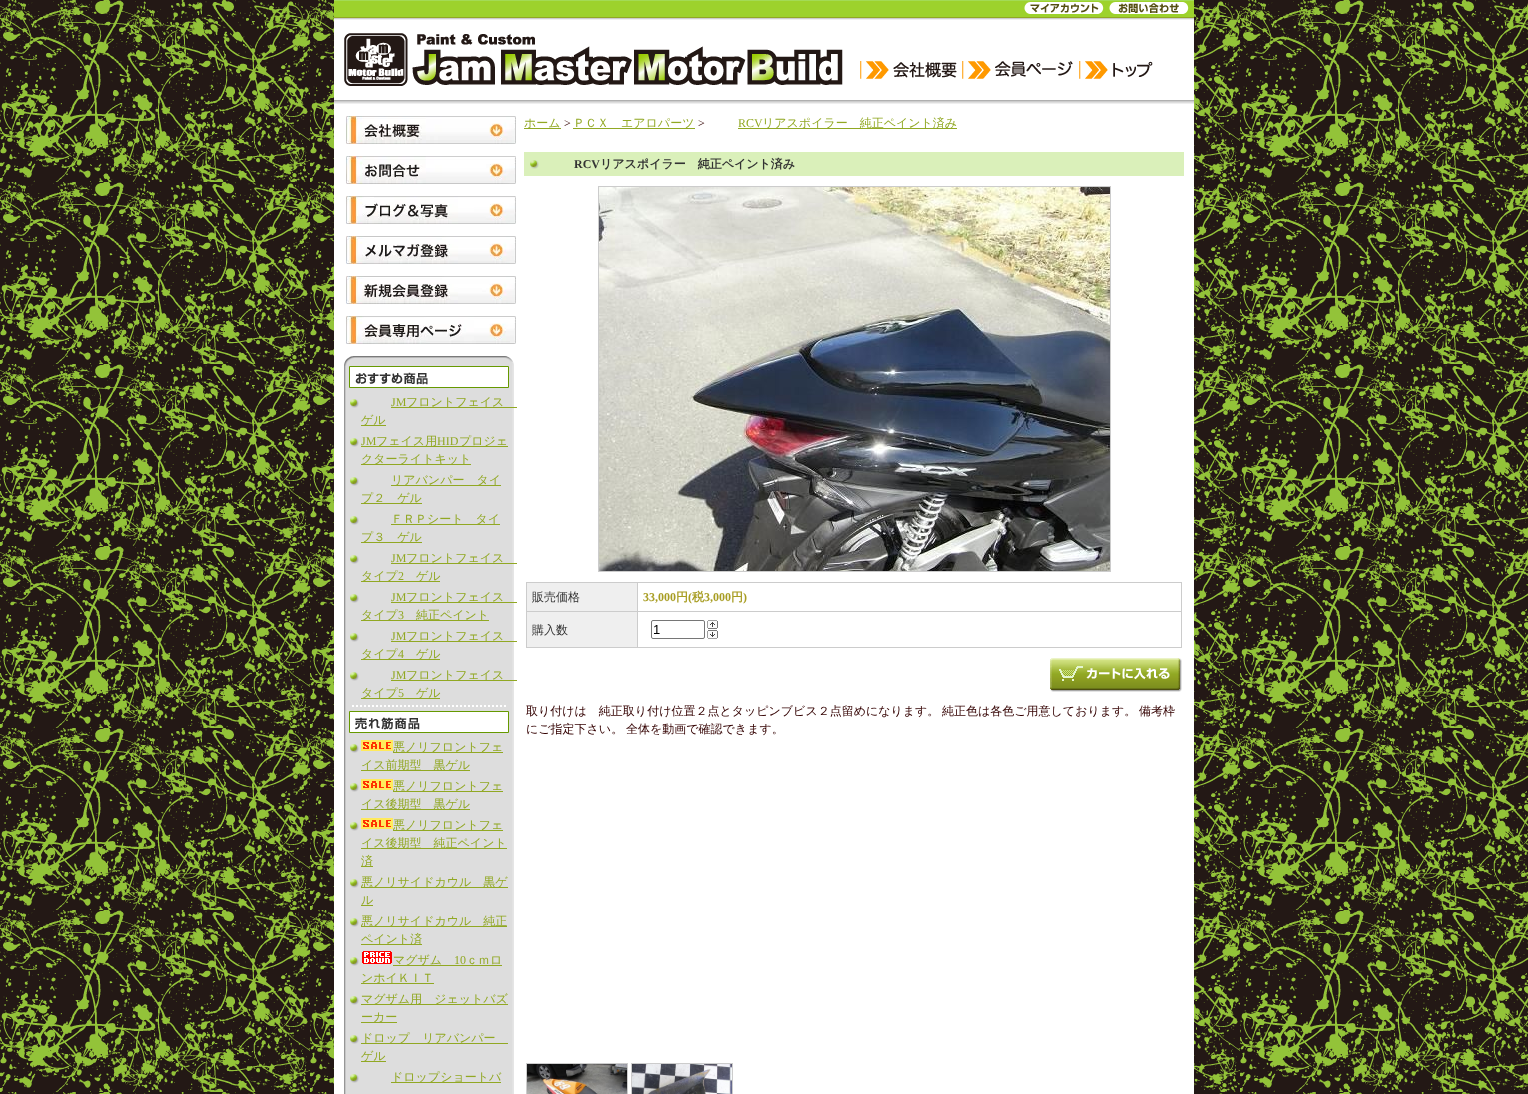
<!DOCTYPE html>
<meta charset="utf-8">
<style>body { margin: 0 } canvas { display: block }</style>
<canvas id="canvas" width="1528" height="1094"></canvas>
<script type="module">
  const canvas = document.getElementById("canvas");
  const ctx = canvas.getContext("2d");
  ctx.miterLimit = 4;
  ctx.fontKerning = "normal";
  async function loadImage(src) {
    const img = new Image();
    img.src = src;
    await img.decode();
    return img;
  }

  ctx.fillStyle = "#ffffff";
  ctx.fillRect(0, 0, 1528, 1094);
  ctx.drawImage(await loadImage("img1.png"), 0, 0, 1528, 1094);
  ctx.fillRect(334, 20, 860, 1074);
  ctx.drawImage(await loadImage("img2.png"), 334, 0, 860, 20);
  ctx.drawImage(await loadImage("img3.png"), 1024, 2, 80, 12);
  ctx.drawImage(await loadImage("img4.png"), 1109, 2, 80, 12);
  ctx.drawImage(await loadImage("img5.png"), 334, 100, 860, 4);
  ctx.drawImage(await loadImage("img6.png"), 344, 33, 499, 53);
  ctx.drawImage(await loadImage("img7.png"), 860, 61, 97, 18);
  ctx.drawImage(await loadImage("img8.png"), 962, 61, 111, 18);
  ctx.drawImage(await loadImage("img9.png"), 1079, 61, 74, 18);
  ctx.drawImage(await loadImage("img10.png"), 346, 116, 170, 28);
  ctx.drawImage(await loadImage("img11.png"), 346, 156, 170, 28);
  ctx.drawImage(await loadImage("img12.png"), 346, 196, 170, 28);
  ctx.drawImage(await loadImage("img13.png"), 346, 236, 170, 28);
  ctx.drawImage(await loadImage("img14.png"), 346, 276, 170, 28);
  ctx.drawImage(await loadImage("img15.png"), 346, 316, 170, 28);
  ctx.drawImage(await loadImage("img16.png"), 344, 358, 170, 736);
  ctx.drawImage(await loadImage("img17.png"), 344, 356, 170, 10);
  ctx.beginPath();
  ctx.rect(349.5, 366.5, 159, 21);
  ctx.fill();
  ctx.strokeStyle = "#669900";
  ctx.stroke();
  ctx.drawImage(await loadImage("img18.png"), 355, 372, 73, 13);
  ctx.drawImage(await loadImage("img19.png"), 350, 399, 9, 9);
  ctx.font = "12px Liberation Serif";
  ctx.fillStyle = "#91a823";
  ctx.fillText("JM", 391, 406);
  ctx.fillRect(391, 407, 126, 1);
  ctx.font = "500 12px WenQuanYi Zen Hei";
  ctx.fillText("フロントフェイス", 406, 406);
  ctx.fillRect(361, 425, 25, 1);
  ctx.fillText("ゲル", 361, 424);
  ctx.drawImage(await loadImage("img19.png"), 350, 438, 9, 9);
  ctx.font = "12px Liberation Serif";
  ctx.fillText("JM", 361, 445);
  ctx.fillRect(361, 446, 147, 1);
  ctx.font = "500 12px WenQuanYi Zen Hei";
  ctx.fillText("フェイス用", 376, 445);
  ctx.font = "12px Liberation Serif";
  ctx.fillText("HID", 437, 445);
  ctx.font = "500 12px WenQuanYi Zen Hei";
  ctx.fillText("プロジェ", 459, 445);
  ctx.fillRect(361, 464, 110, 1);
  ctx.fillText("クターライトキット", 361, 463);
  ctx.drawImage(await loadImage("img19.png"), 350, 477, 9, 9);
  ctx.fillRect(391, 485, 110, 1);
  ctx.fillText("リアバンパー　タイ", 391, 484);
  ctx.fillRect(361, 503, 61, 1);
  ctx.fillText("プ２　ゲル", 361, 502);
  ctx.drawImage(await loadImage("img19.png"), 350, 516, 9, 9);
  ctx.fillRect(391, 524, 109, 1);
  ctx.fillText("ＦＲＰシート　タイ", 391, 523);
  ctx.fillRect(361, 542, 61, 1);
  ctx.fillText("プ３　ゲル", 361, 541);
  ctx.drawImage(await loadImage("img19.png"), 350, 555, 9, 9);
  ctx.font = "12px Liberation Serif";
  ctx.fillText("JM", 391, 562);
  ctx.fillRect(391, 563, 126, 1);
  ctx.font = "500 12px WenQuanYi Zen Hei";
  ctx.fillText("フロントフェイス", 406, 562);
  ctx.fillRect(361, 581, 79, 1);
  ctx.fillText("タイプ", 361, 580);
  ctx.font = "12px Liberation Serif";
  ctx.fillText("2", 398, 580);
  ctx.font = "500 12px WenQuanYi Zen Hei";
  ctx.fillText("ゲル", 416, 580);
  ctx.drawImage(await loadImage("img19.png"), 350, 594, 9, 9);
  ctx.font = "12px Liberation Serif";
  ctx.fillText("JM", 391, 601);
  ctx.fillRect(391, 602, 126, 1);
  ctx.font = "500 12px WenQuanYi Zen Hei";
  ctx.fillText("フロントフェイス", 406, 601);
  ctx.fillRect(361, 620, 128, 1);
  ctx.fillText("タイプ", 361, 619);
  ctx.font = "12px Liberation Serif";
  ctx.fillText("3", 398, 619);
  ctx.font = "500 12px WenQuanYi Zen Hei";
  ctx.fillText("純正ペイント", 416, 619);
  ctx.drawImage(await loadImage("img19.png"), 350, 633, 9, 9);
  ctx.font = "12px Liberation Serif";
  ctx.fillText("JM", 391, 640);
  ctx.fillRect(391, 641, 126, 1);
  ctx.font = "500 12px WenQuanYi Zen Hei";
  ctx.fillText("フロントフェイス", 406, 640);
  ctx.fillRect(361, 659, 79, 1);
  ctx.fillText("タイプ", 361, 658);
  ctx.font = "12px Liberation Serif";
  ctx.fillText("4", 398, 658);
  ctx.font = "500 12px WenQuanYi Zen Hei";
  ctx.fillText("ゲル", 416, 658);
  ctx.drawImage(await loadImage("img19.png"), 350, 672, 9, 9);
  ctx.font = "12px Liberation Serif";
  ctx.fillText("JM", 391, 679);
  ctx.fillRect(391, 680, 126, 1);
  ctx.font = "500 12px WenQuanYi Zen Hei";
  ctx.fillText("フロントフェイス", 406, 679);
  ctx.fillRect(361, 698, 79, 1);
  ctx.fillText("タイプ", 361, 697);
  ctx.font = "12px Liberation Serif";
  ctx.fillText("5", 398, 697);
  ctx.font = "500 12px WenQuanYi Zen Hei";
  ctx.fillText("ゲル", 416, 697);
  ctx.beginPath();
  ctx.moveTo(352, 706);
  ctx.lineTo(506, 706);
  ctx.strokeStyle = "#ffffff";
  ctx.lineWidth = 2;
  ctx.setLineDash([2, 2]);
  ctx.stroke();
  ctx.fillStyle = "#ffffff";
  ctx.beginPath();
  ctx.rect(349.5, 711.5, 159, 21);
  ctx.fill();
  ctx.strokeStyle = "#669900";
  ctx.lineWidth = 1;
  ctx.setLineDash([]);
  ctx.stroke();
  ctx.drawImage(await loadImage("img20.png"), 355, 717, 65, 13);
  ctx.drawImage(await loadImage("img19.png"), 350, 744, 9, 9);
  ctx.drawImage(await loadImage("img21.png"), 361, 740, 32, 11);
  ctx.fillStyle = "#91a823";
  ctx.fillRect(393, 752, 110, 1);
  ctx.fillText("悪ノリフロントフェ", 393, 751);
  ctx.fillRect(361, 770, 109, 1);
  ctx.fillText("イス前期型　黒ゲル", 361, 769);
  ctx.drawImage(await loadImage("img19.png"), 350, 783, 9, 9);
  ctx.drawImage(await loadImage("img21.png"), 361, 779, 32, 11);
  ctx.fillRect(393, 791, 110, 1);
  ctx.fillText("悪ノリフロントフェ", 393, 790);
  ctx.fillRect(361, 809, 109, 1);
  ctx.fillText("イス後期型　黒ゲル", 361, 808);
  ctx.drawImage(await loadImage("img19.png"), 350, 822, 9, 9);
  ctx.drawImage(await loadImage("img21.png"), 361, 818, 32, 11);
  ctx.fillRect(393, 830, 110, 1);
  ctx.fillText("悪ノリフロントフェ", 393, 829);
  ctx.fillRect(361, 848, 146, 1);
  ctx.fillText("イス後期型　純正ペイント", 361, 847);
  ctx.fillRect(361, 866, 12, 1);
  ctx.fillText("済", 361, 865);
  ctx.drawImage(await loadImage("img19.png"), 350, 879, 9, 9);
  ctx.fillRect(361, 887, 147, 1);
  ctx.fillText("悪ノリサイドカウル　黒ゲ", 361, 886);
  ctx.fillText("ル", 361, 904);
  ctx.fillRect(361, 905, 12, 1);
  ctx.drawImage(await loadImage("img19.png"), 350, 918, 9, 9);
  ctx.fillRect(361, 926, 146, 1);
  ctx.fillText("悪ノリサイドカウル　純正", 361, 925);
  ctx.fillRect(361, 944, 61, 1);
  ctx.fillText("ペイント済", 361, 943);
  ctx.drawImage(await loadImage("img19.png"), 350, 957, 9, 9);
  ctx.drawImage(await loadImage("img22.png"), 362, 951, 30, 13);
  ctx.fillRect(393, 965, 109, 1);
  ctx.fillText("マグザム", 393, 964);
  ctx.font = "12px Liberation Serif";
  ctx.fillText("10", 454, 964);
  ctx.font = "500 12px WenQuanYi Zen Hei";
  ctx.fillText("ｃｍロ", 466, 964);
  ctx.fillRect(361, 983, 73, 1);
  ctx.fillText("ンホイＫＩＴ", 361, 982);
  ctx.drawImage(await loadImage("img19.png"), 350, 996, 9, 9);
  ctx.fillRect(361, 1004, 147, 1);
  ctx.fillText("マグザム用　ジェットバズ", 361, 1003);
  ctx.fillRect(361, 1022, 36, 1);
  ctx.fillText("ーカー", 361, 1021);
  ctx.drawImage(await loadImage("img19.png"), 350, 1035, 9, 9);
  ctx.fillRect(361, 1043, 147, 1);
  ctx.fillText("ドロップ　リアバンパー", 361, 1042);
  ctx.fillRect(361, 1061, 25, 1);
  ctx.fillText("ゲル", 361, 1060);
  ctx.drawImage(await loadImage("img19.png"), 350, 1074, 9, 9);
  ctx.fillRect(391, 1082, 110, 1);
  ctx.fillText("ドロップショートバ", 391, 1081);
  ctx.fillRect(524, 128, 37, 1);
  ctx.fillText("ホーム", 524, 127);
  ctx.font = "12px Liberation Serif";
  ctx.fillStyle = "#330000";
  ctx.fillText(">", 564, 127);
  ctx.fillStyle = "#91a823";
  ctx.fillRect(573, 128, 122, 1);
  ctx.font = "500 12px WenQuanYi Zen Hei";
  ctx.fillText("ＰＣＸ　エアロパーツ", 573, 127);
  ctx.font = "12px Liberation Serif";
  ctx.fillStyle = "#330000";
  ctx.fillText(">", 698, 127);
  ctx.fillStyle = "#91a823";
  ctx.fillText("RCV", 738, 127);
  ctx.fillRect(738, 128, 219, 1);
  ctx.font = "500 12px WenQuanYi Zen Hei";
  ctx.fillText("リアスポイラー　純正ペイント済み", 762, 127);
  ctx.fillStyle = "#daf0ba";
  ctx.fillRect(524, 152, 660, 24);
  ctx.drawImage(await loadImage("img23.png"), 530, 160, 9, 9);
  ctx.font = "bold 12px Liberation Serif";
  ctx.fillStyle = "#333333";
  ctx.fillText("RCV", 574, 168);
  ctx.font = "bold 12px WenQuanYi Zen Hei";
  ctx.fillText("リアスポイラー　純正ペイント済み", 600, 168);
  ctx.strokeStyle = "#cccccc";
  ctx.strokeRect(598.5, 186.5, 512, 385);
  ctx.drawImage(await loadImage("img24.png"), 599, 187, 511, 384);
  ctx.fillStyle = "#cccccc";
  ctx.fillRect(526, 582, 656, 66);
  ctx.fillStyle = "#efefef";
  ctx.fillRect(527, 583, 110, 28);
  ctx.font = "500 12px WenQuanYi Zen Hei";
  ctx.fillStyle = "#333333";
  ctx.fillText("販売価格", 532, 601);
  ctx.fillStyle = "#ffffff";
  ctx.fillRect(638, 583, 543, 28);
  ctx.font = "bold 12px Liberation Serif";
  ctx.fillStyle = "#a89d23";
  ctx.fillText("33,000", 643, 601);
  ctx.font = "bold 12px WenQuanYi Zen Hei";
  ctx.fillText("円", 676, 601);
  ctx.font = "bold 12px Liberation Serif";
  ctx.fillText("(", 688, 601);
  ctx.font = "bold 12px WenQuanYi Zen Hei";
  ctx.fillText("税", 692, 601);
  ctx.font = "bold 12px Liberation Serif";
  ctx.fillText("3,000", 704, 601);
  ctx.font = "bold 12px WenQuanYi Zen Hei";
  ctx.fillText("円", 731, 601);
  ctx.font = "bold 12px Liberation Serif";
  ctx.fillText(")", 743, 601);
  ctx.fillStyle = "#efefef";
  ctx.fillRect(527, 612, 110, 35);
  ctx.font = "500 12px WenQuanYi Zen Hei";
  ctx.fillStyle = "#333333";
  ctx.fillText("購入数", 532, 634);
  ctx.fillStyle = "#ffffff";
  ctx.fillRect(638, 612, 543, 35);
  ctx.beginPath();
  ctx.roundRect(651.5, 620.5, 53, 18, 1.5);
  ctx.strokeStyle = "#767676";
  ctx.stroke();
  ctx.font = "13px Liberation Sans";
  ctx.fillStyle = "#000000";
  ctx.fillText("1", 653, 634);
  ctx.drawImage(await loadImage("img25.png"), 707, 620, 11, 9);
  ctx.drawImage(await loadImage("img26.png"), 707, 630, 11, 9);
  ctx.drawImage(await loadImage("img27.png"), 1050, 658, 132, 34);
  ctx.font = "500 12px WenQuanYi Zen Hei";
  ctx.fillStyle = "#330000";
  ctx.fillText("取り付けは　純正取り付け位置２点とタッピンブビス２点留めになります。", 526, 715);
  ctx.fillText("純正色は各色ご用意しております。", 942, 715);
  ctx.fillText("備考枠", 1139, 715);
  ctx.fillText("にご指定下さい。", 526, 733);
  ctx.fillText("全体を動画で確認できます。", 626, 733);
  ctx.strokeStyle = "#cccccc";
  ctx.strokeRect(526.5, 1063.5, 101, 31);
  ctx.strokeRect(631.5, 1063.5, 101, 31);
  ctx.drawImage(await loadImage("img28.png"), 527, 1064, 100, 30);
  ctx.drawImage(await loadImage("img29.png"), 632, 1064, 100, 30);
</script>
